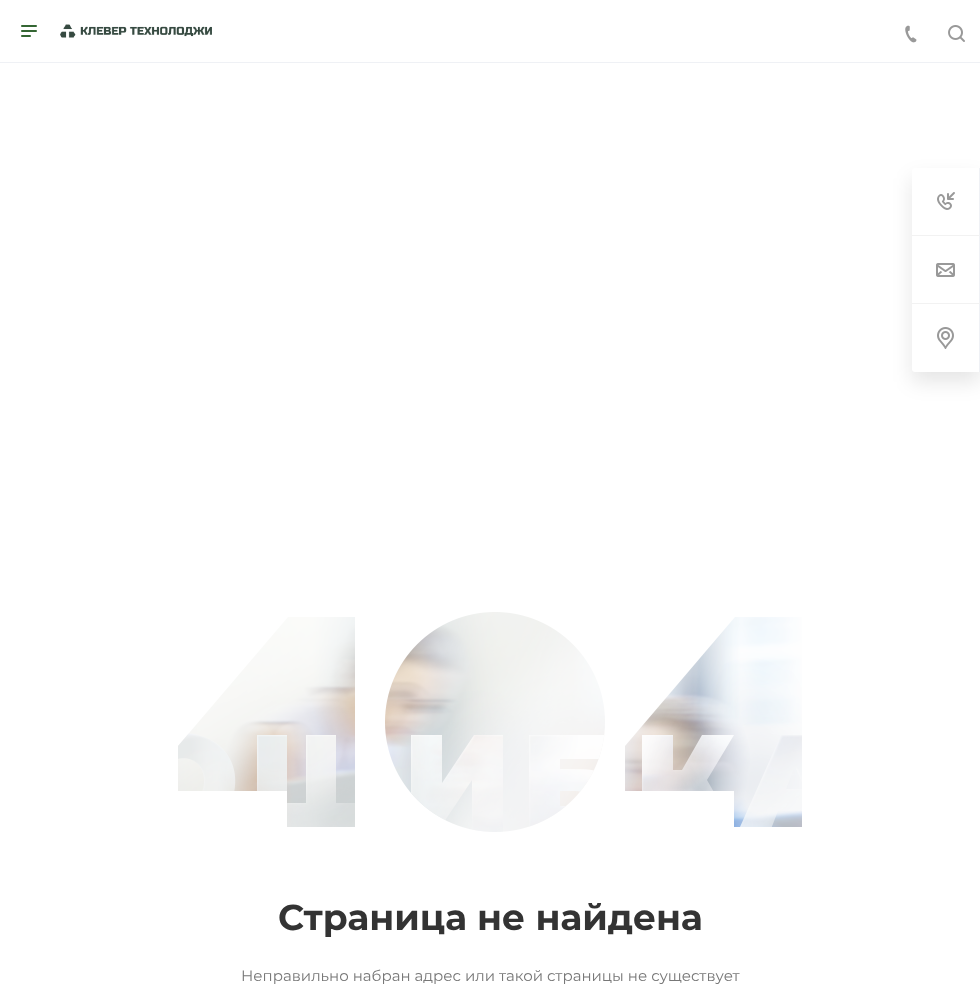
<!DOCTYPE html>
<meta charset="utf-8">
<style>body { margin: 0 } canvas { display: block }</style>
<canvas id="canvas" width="980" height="990"></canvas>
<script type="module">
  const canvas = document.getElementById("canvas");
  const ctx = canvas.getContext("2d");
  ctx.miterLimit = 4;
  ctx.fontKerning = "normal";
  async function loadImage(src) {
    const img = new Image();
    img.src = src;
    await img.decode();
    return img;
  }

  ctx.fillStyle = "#ffffff";
  ctx.fillRect(0, 0, 980, 990);
  ctx.fillStyle = "#eff1f5";
  ctx.fillRect(0, 62, 980, 1);
  ctx.drawImage(await loadImage("img1.png"), 21, 25, 16, 12);
  ctx.drawImage(await loadImage("img2.png"), 60, 24, 152, 14);
  ctx.drawImage(await loadImage("img3.png"), 905, 25, 12, 18);
  ctx.drawImage(await loadImage("img4.png"), 948, 25, 17, 17);
  ctx.fillStyle = "rgba(0, 0, 0, 0.1)";
  ctx.filter = "blur(10px)";
  ctx.beginPath();
  ctx.roundRect(912, 178, 68, 204, 3);
  ctx.fill();
  ctx.filter = "none";
  ctx.fillStyle = "#ffffff";
  ctx.beginPath();
  ctx.roundRect(912, 168, 68, 204, [3, 0, 0, 3]);
  ctx.fill();
  ctx.fillStyle = "#eff1f5";
  ctx.fillRect(979, 168, 1, 204);
  ctx.fillStyle = "#f2f2f2";
  ctx.fillRect(912, 235, 68, 1);
  ctx.drawImage(await loadImage("img5.png"), 937, 192, 18, 18);
  ctx.fillRect(912, 303, 68, 1);
  ctx.drawImage(await loadImage("img6.png"), 936, 263, 19, 14);
  ctx.drawImage(await loadImage("img7.png"), 937, 327, 17, 22);
  ctx.drawImage(await loadImage("img8.png"), 178, 612, 624, 220);
  ctx.font = "bold 36px Montserrat";
  ctx.fillStyle = "#333333";
  ctx.fillText("Страница не найдена", 278, 930);
  ctx.font = "15px Montserrat";
  ctx.fillStyle = "#777777";
  ctx.fillText("Неправильно набран адрес или такой страницы не существует", 241, 981);
</script>
